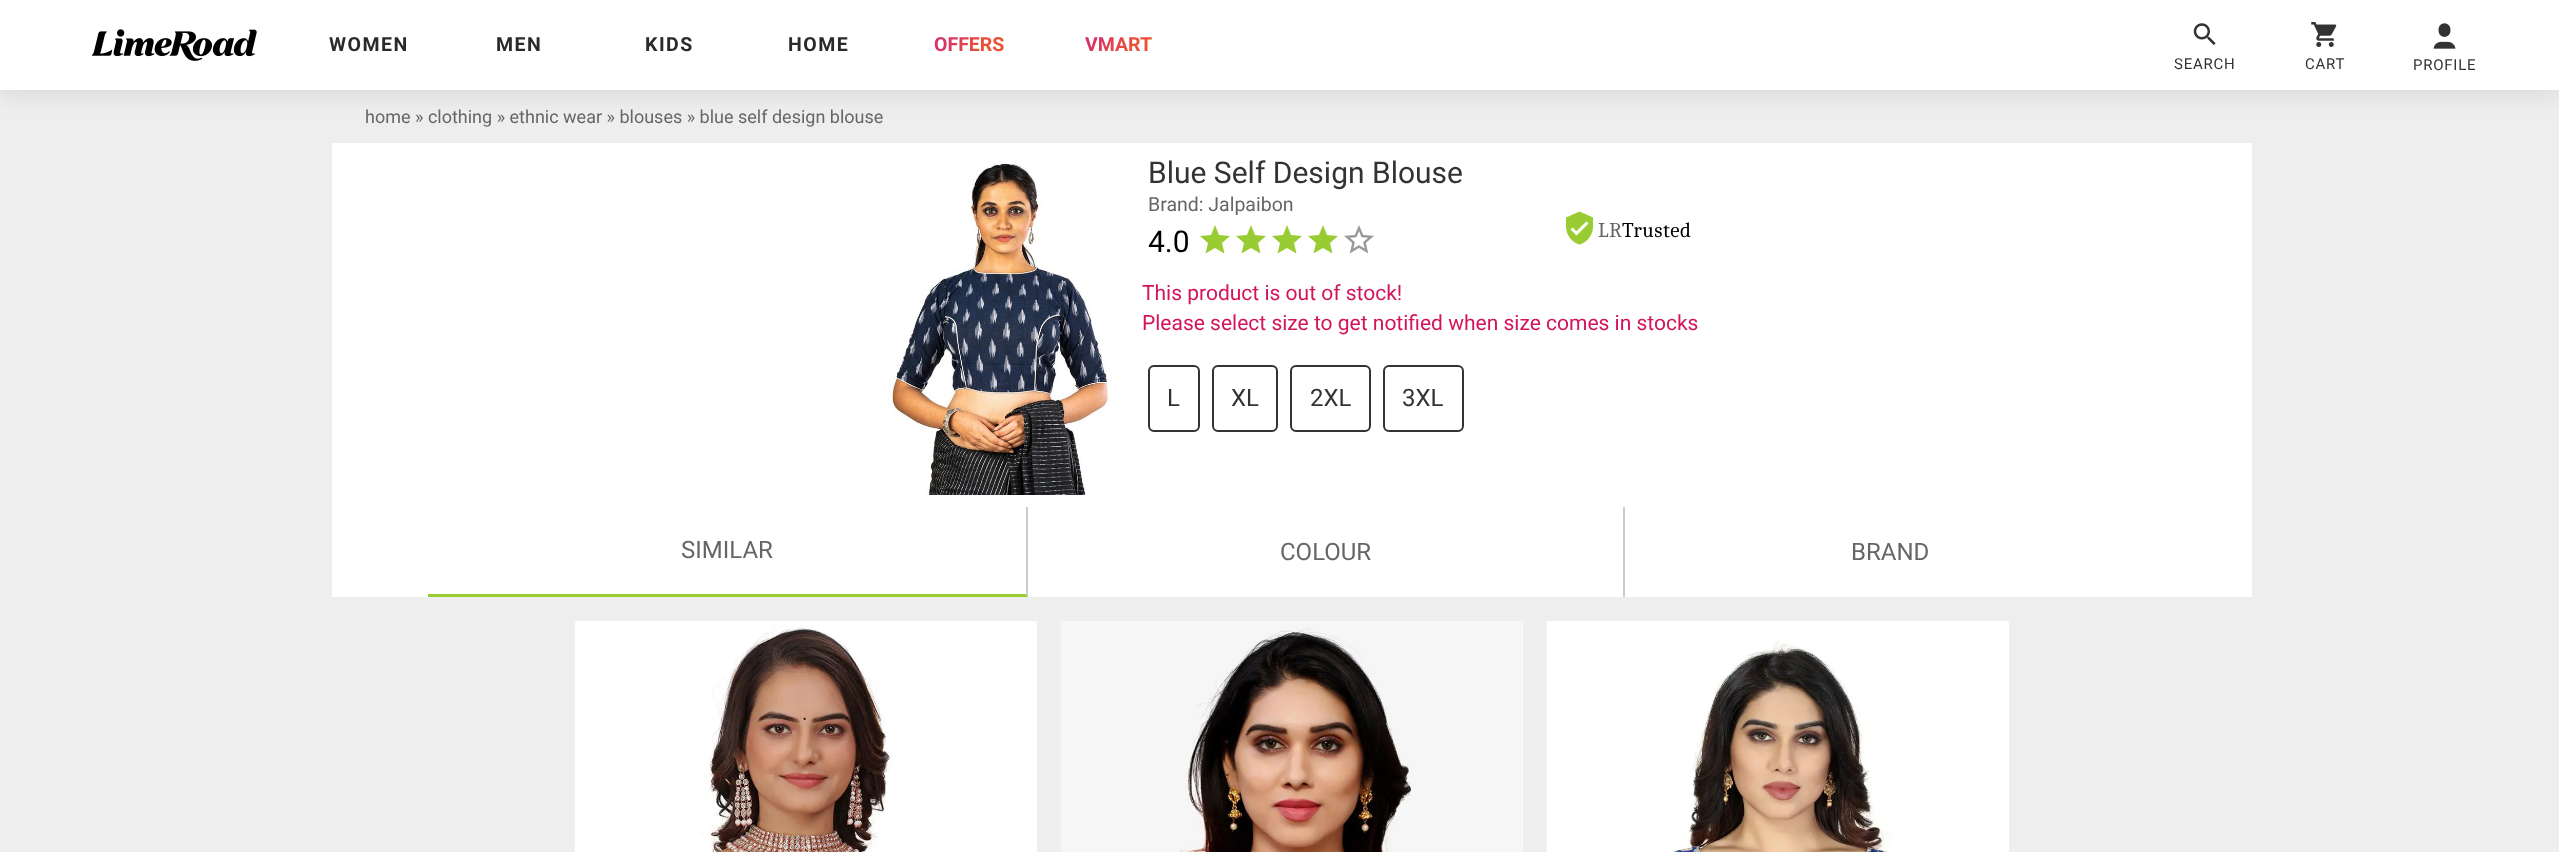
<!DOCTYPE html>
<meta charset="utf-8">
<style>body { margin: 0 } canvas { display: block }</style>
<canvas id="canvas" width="2559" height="852"></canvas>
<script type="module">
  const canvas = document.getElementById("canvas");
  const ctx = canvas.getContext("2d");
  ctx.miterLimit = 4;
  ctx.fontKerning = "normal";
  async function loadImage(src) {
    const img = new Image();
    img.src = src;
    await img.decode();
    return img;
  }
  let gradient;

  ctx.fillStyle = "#eeeeee";
  ctx.fillRect(0, 0, 2559, 852);
  ctx.fillStyle = "rgba(85, 85, 85, 0.16)";
  ctx.filter = "blur(12px)";
  ctx.beginPath();
  ctx.rect(0, 3, 2559, 90);
  ctx.fill();
  ctx.filter = "none";
  ctx.fillStyle = "#ffffff";
  ctx.fillRect(0, 0, 2559, 90);
  ctx.drawImage(await loadImage("img1.png"), 92, 29, 165, 32);
  ctx.letterSpacing = "1.5px";
  ctx.font = "bold 19.5px Roboto";
  ctx.fillStyle = "#2a2a2a";
  ctx.fillText("WOMEN", 329, 51);
  ctx.fillText("MEN", 496, 51);
  ctx.fillText("KIDS", 645, 51);
  ctx.fillText("HOME", 788, 51);
  ctx.letterSpacing = "0px";
  gradient = ctx.createLinearGradient(936, 23, 999, 63);
  gradient.addColorStop(0, "#ce297e");
  gradient.addColorStop(0.73, "#ed5133");
  ctx.fillStyle = gradient;
  ctx.fillText("OFFERS", 934, 51);
  gradient = ctx.createLinearGradient(1087, 24, 1148, 62);
  gradient.addColorStop(0, "#ce297e");
  gradient.addColorStop(0.73, "#ed5133");
  ctx.fillStyle = gradient;
  ctx.fillText("VMART", 1085, 51);
  ctx.drawImage(await loadImage("img2.png"), 2193, 23, 23, 22);
  ctx.letterSpacing = "0.75px";
  ctx.font = "15px Roboto";
  ctx.fillStyle = "#333333";
  ctx.fillText("SEARCH", 2174, 69);
  ctx.drawImage(await loadImage("img3.png"), 2311, 22, 26, 25);
  ctx.fillText("CART", 2305, 69);
  ctx.drawImage(await loadImage("img4.png"), 2433, 23, 23, 26);
  ctx.fillText("PROFILE", 2413, 70);
  ctx.letterSpacing = "0px";
  ctx.font = "18px Roboto";
  ctx.fillStyle = "#666666";
  ctx.fillText("home » clothing » ethnic wear » blouses » blue self design blouse", 365, 123);
  ctx.fillStyle = "#ffffff";
  ctx.fillRect(332, 143, 1920, 454);
  ctx.drawImage(await loadImage("img5.png"), 889, 161, 222, 334);
  ctx.font = "30px Roboto";
  ctx.fillStyle = "#333333";
  ctx.fillText("Blue Self Design Blouse", 1148, 183);
  ctx.font = "19.5px Roboto";
  ctx.fillStyle = "#666666";
  ctx.fillText("Brand: Jalpaibon", 1148, 211);
  ctx.font = "30px Roboto";
  ctx.fillStyle = "#000000";
  ctx.fillText("4.0", 1148, 252);
  ctx.fillStyle = "#99cc33";
  ctx.beginPath();
  ctx.moveTo(1215, 248);
  ctx.lineTo(1224.5, 253.5);
  ctx.lineTo(1222, 243);
  ctx.lineTo(1230, 236);
  ctx.lineTo(1219, 235);
  ctx.lineTo(1215, 225);
  ctx.lineTo(1211, 235);
  ctx.lineTo(1200, 236);
  ctx.lineTo(1208, 243);
  ctx.lineTo(1205.5, 253.5);
  ctx.closePath();
  ctx.fill();
  ctx.beginPath();
  ctx.moveTo(1251, 248);
  ctx.lineTo(1260.5, 253.5);
  ctx.lineTo(1258, 243);
  ctx.lineTo(1266, 236);
  ctx.lineTo(1255, 235);
  ctx.lineTo(1251, 225);
  ctx.lineTo(1247, 235);
  ctx.lineTo(1236, 236);
  ctx.lineTo(1244, 243);
  ctx.lineTo(1241.5, 253.5);
  ctx.closePath();
  ctx.fill();
  ctx.beginPath();
  ctx.moveTo(1287, 248);
  ctx.lineTo(1296.5, 253.5);
  ctx.lineTo(1294, 243);
  ctx.lineTo(1302, 236);
  ctx.lineTo(1291, 235);
  ctx.lineTo(1287, 225);
  ctx.lineTo(1283, 235);
  ctx.lineTo(1272, 236);
  ctx.lineTo(1280, 243);
  ctx.lineTo(1277.5, 253.5);
  ctx.closePath();
  ctx.fill();
  ctx.beginPath();
  ctx.moveTo(1323, 248);
  ctx.lineTo(1332.5, 253.5);
  ctx.lineTo(1330, 243);
  ctx.lineTo(1338, 236);
  ctx.lineTo(1327, 235);
  ctx.lineTo(1323, 225);
  ctx.lineTo(1319, 235);
  ctx.lineTo(1308, 236);
  ctx.lineTo(1316, 243);
  ctx.lineTo(1313.5, 253.5);
  ctx.closePath();
  ctx.fill();
  ctx.drawImage(await loadImage("img6.png"), 1344, 225, 30, 29);
  ctx.drawImage(await loadImage("img7.png"), 1566, 211, 27, 34);
  ctx.letterSpacing = "0.5px";
  ctx.font = "21px Caladea";
  ctx.fillStyle = "#666666";
  ctx.fillText("LR", 1598, 237);
  ctx.fillStyle = "#000000";
  ctx.fillText("Trusted", 1622, 237);
  ctx.letterSpacing = "0px";
  ctx.font = "21px Roboto";
  ctx.fillStyle = "#d3145a";
  ctx.fillText("This product is out of stock!", 1142, 300);
  ctx.fillText("Please select size to get notified when size comes in stocks", 1142, 330);
  ctx.beginPath();
  ctx.roundRect(1149, 366, 50, 65, 5);
  ctx.strokeStyle = "#333333";
  ctx.lineWidth = 2;
  ctx.stroke();
  ctx.font = "24px Roboto";
  ctx.fillStyle = "#333333";
  ctx.fillText("L", 1167, 406);
  ctx.beginPath();
  ctx.roundRect(1213, 366, 64, 65, 5);
  ctx.stroke();
  ctx.fillText("XL", 1231, 406);
  ctx.beginPath();
  ctx.roundRect(1291, 366, 79, 65, 5);
  ctx.stroke();
  ctx.fillText("2XL", 1310, 406);
  ctx.beginPath();
  ctx.roundRect(1384, 366, 79, 65, 5);
  ctx.stroke();
  ctx.fillText("3XL", 1402, 406);
  ctx.fillStyle = "#cccccc";
  ctx.beginPath();
  ctx.moveTo(1028, 507);
  ctx.lineTo(1028, 597);
  ctx.lineTo(1026, 594);
  ctx.lineTo(1026, 507);
  ctx.closePath();
  ctx.fill();
  ctx.fillStyle = "#99cc33";
  ctx.beginPath();
  ctx.moveTo(1028, 597);
  ctx.lineTo(428, 597);
  ctx.lineTo(428, 594);
  ctx.lineTo(1026, 594);
  ctx.closePath();
  ctx.fill();
  ctx.fillStyle = "#666666";
  ctx.fillText("SIMILAR", 681, 558);
  ctx.fillStyle = "#cccccc";
  ctx.fillRect(1623, 507, 2, 90);
  ctx.fillStyle = "#666666";
  ctx.fillText("COLOUR", 1280, 560);
  ctx.fillText("BRAND", 1851, 560);
  ctx.fillStyle = "#ffffff";
  ctx.beginPath();
  ctx.roundRect(572, 618, 468, 234, [6, 6, 0, 0]);
  ctx.fill();
  ctx.beginPath();
  ctx.roundRect(573.5, 619.5, 465, 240, 4.5);
  ctx.strokeStyle = "#eeeeee";
  ctx.lineWidth = 3;
  ctx.stroke();
  ctx.drawImage(await loadImage("img8.png"), 574, 621, 463, 231);
  ctx.beginPath();
  ctx.roundRect(1058, 618, 468, 234, [6, 6, 0, 0]);
  ctx.fill();
  ctx.beginPath();
  ctx.roundRect(1059.5, 619.5, 465, 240, 4.5);
  ctx.stroke();
  ctx.drawImage(await loadImage("img9.png"), 1061, 621, 462, 231);
  ctx.beginPath();
  ctx.roundRect(1544, 618, 468, 234, [6, 6, 0, 0]);
  ctx.fill();
  ctx.beginPath();
  ctx.roundRect(1545.5, 619.5, 465, 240, 4.5);
  ctx.stroke();
  ctx.drawImage(await loadImage("img10.png"), 1546, 621, 463, 231);
</script>
